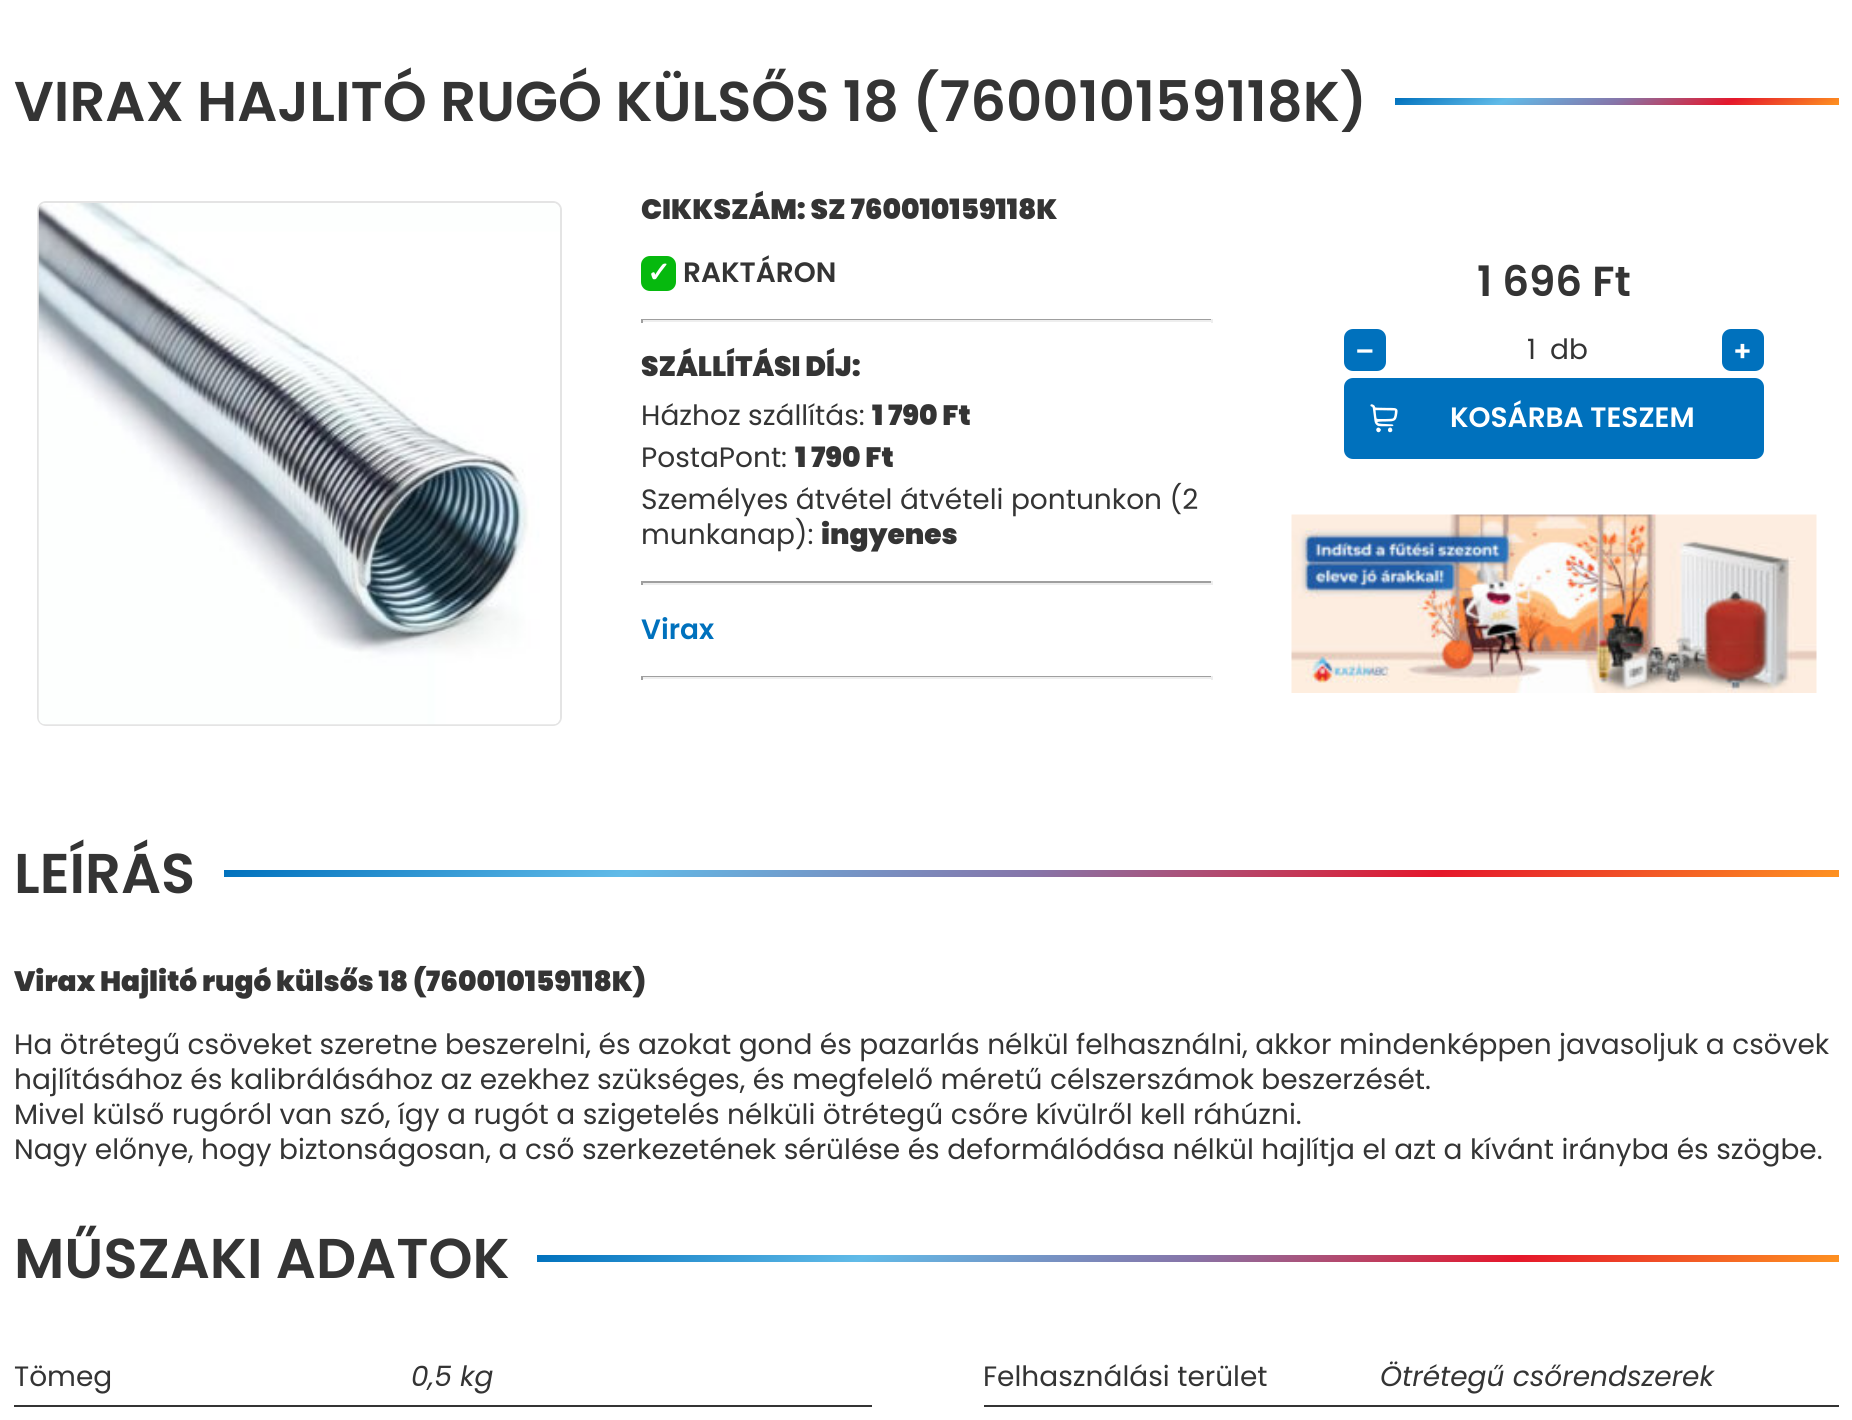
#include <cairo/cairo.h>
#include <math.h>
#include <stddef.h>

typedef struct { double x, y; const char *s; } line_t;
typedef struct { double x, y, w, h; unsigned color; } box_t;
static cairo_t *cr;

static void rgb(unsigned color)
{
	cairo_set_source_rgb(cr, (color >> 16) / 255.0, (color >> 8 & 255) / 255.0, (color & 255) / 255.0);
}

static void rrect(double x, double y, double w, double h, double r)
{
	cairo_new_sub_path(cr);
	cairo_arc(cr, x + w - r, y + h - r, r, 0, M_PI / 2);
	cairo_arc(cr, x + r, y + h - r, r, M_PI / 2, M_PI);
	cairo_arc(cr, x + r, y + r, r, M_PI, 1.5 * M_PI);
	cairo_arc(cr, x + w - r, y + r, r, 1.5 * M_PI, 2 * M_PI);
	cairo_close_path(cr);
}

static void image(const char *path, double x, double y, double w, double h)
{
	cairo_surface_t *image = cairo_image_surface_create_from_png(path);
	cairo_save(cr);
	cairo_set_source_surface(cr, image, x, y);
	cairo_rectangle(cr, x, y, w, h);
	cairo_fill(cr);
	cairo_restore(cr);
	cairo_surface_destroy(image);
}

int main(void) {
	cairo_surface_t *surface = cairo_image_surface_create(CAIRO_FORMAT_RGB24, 1852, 1420);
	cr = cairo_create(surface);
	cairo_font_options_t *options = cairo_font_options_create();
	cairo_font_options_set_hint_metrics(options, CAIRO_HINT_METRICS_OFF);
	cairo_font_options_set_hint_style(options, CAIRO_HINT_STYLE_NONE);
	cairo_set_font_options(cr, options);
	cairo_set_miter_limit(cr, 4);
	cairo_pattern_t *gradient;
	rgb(0xffffff);
	cairo_paint(cr);
	gradient = cairo_pattern_create_linear(1560, 2.6, 1674, 200);
	cairo_pattern_add_color_stop_rgba(gradient, 0, 0, 0.443, 0.741, 1);
	cairo_pattern_add_color_stop_rgba(gradient, 0.25, 0.38, 0.733, 0.91, 1);
	cairo_pattern_add_color_stop_rgba(gradient, 0.5, 0.525, 0.459, 0.663, 1);
	cairo_pattern_add_color_stop_rgba(gradient, 0.75, 0.898, 0.09, 0.169, 1);
	cairo_pattern_add_color_stop_rgba(gradient, 1, 0.996, 0.576, 0.129, 1);
	cairo_set_source(cr, gradient);
	cairo_pattern_destroy(gradient);
	cairo_rectangle(cr, 1395, 98, 444, 7);
	cairo_fill(cr);
	rrect(38, 202, 523, 523, 8);
	rgb(0xe4e4e4);
	cairo_stroke(cr);
	image("img/1.png", 38, 203, 522, 522);
	rgb(0x06b90e);
	rrect(641, 256, 35, 35, 9);
	cairo_fill(cr);
	{
		static const box_t items[] = {
			{641, 319, 572, 1, 0x9f9f9f},
			{1211, 319, 2, 4, 0xeeeeee},
			{641, 320, 572, 2, 0xeeeeee},
			{641, 319, 2, 4, 0x9f9f9f},
			{641, 581, 572, 2, 0x9f9f9f},
			{1211, 581, 2, 4, 0xeeeeee},
			{641, 583, 572, 2, 0xeeeeee},
			{641, 581, 2, 4, 0x9f9f9f},
			{641, 676, 572, 1, 0x9f9f9f},
			{1211, 676, 2, 4, 0xeeeeee},
			{641, 677, 572, 2, 0xeeeeee},
			{641, 676, 2, 4, 0x9f9f9f},
		};
		for (size_t i = 0; i < sizeof items / sizeof *items; i++) {
			rgb(items[i].color);
			cairo_rectangle(cr, items[i].x, items[i].y, items[i].w, items[i].h);
			cairo_fill(cr);
		}
	}
	rgb(0x0071bd);
	rrect(1345, 330, 40, 40, 8);
	cairo_fill_preserve(cr);
	cairo_stroke(cr);
	rrect(1723, 330, 40, 40, 8);
	cairo_fill_preserve(cr);
	cairo_stroke(cr);
	rrect(1345, 379, 418, 79, 8);
	cairo_fill_preserve(cr);
	cairo_stroke(cr);
	image("img/2.png", 1370, 404, 28, 29);
	image("img/3.png", 1291, 514, 526, 179);
	gradient = cairo_pattern_create_linear(828, 521, 1235, 1226);
	cairo_pattern_add_color_stop_rgba(gradient, 0, 0, 0.443, 0.741, 1);
	cairo_pattern_add_color_stop_rgba(gradient, 0.25, 0.38, 0.733, 0.91, 1);
	cairo_pattern_add_color_stop_rgba(gradient, 0.5, 0.525, 0.459, 0.663, 1);
	cairo_pattern_add_color_stop_rgba(gradient, 0.75, 0.898, 0.09, 0.169, 1);
	cairo_pattern_add_color_stop_rgba(gradient, 1, 0.996, 0.576, 0.129, 1);
	cairo_set_source(cr, gradient);
	cairo_pattern_destroy(gradient);
	cairo_rectangle(cr, 224, 870, 1615, 7);
	cairo_fill(cr);
	gradient = cairo_pattern_create_linear(1024, 974, 1353, 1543);
	cairo_pattern_add_color_stop_rgba(gradient, 0, 0, 0.443, 0.741, 1);
	cairo_pattern_add_color_stop_rgba(gradient, 0.25, 0.38, 0.733, 0.91, 1);
	cairo_pattern_add_color_stop_rgba(gradient, 0.5, 0.525, 0.459, 0.663, 1);
	cairo_pattern_add_color_stop_rgba(gradient, 0.75, 0.898, 0.09, 0.169, 1);
	cairo_pattern_add_color_stop_rgba(gradient, 1, 0.996, 0.576, 0.129, 1);
	cairo_set_source(cr, gradient);
	cairo_pattern_destroy(gradient);
	cairo_rectangle(cr, 537, 1255, 1302, 7);
	cairo_fill(cr);
	rgb(0x343434);
	cairo_rectangle(cr, 14, 1405, 858, 2);
	cairo_fill(cr);
	cairo_rectangle(cr, 984, 1405, 855, 2);
	cairo_fill(cr);
	cairo_select_font_face(cr, "Poppins SemiBold", CAIRO_FONT_SLANT_NORMAL, CAIRO_FONT_WEIGHT_NORMAL);
	cairo_set_font_size(cr, 56);
	cairo_move_to(cr, 14, 121);
	cairo_show_text(cr, "VIRAX HAJLITÓ RUGÓ KÜLSŐS 18 (760010159118K)");
	cairo_select_font_face(cr, "Poppins Black", CAIRO_FONT_SLANT_NORMAL, CAIRO_FONT_WEIGHT_NORMAL);
	cairo_set_font_size(cr, 28);
	cairo_move_to(cr, 641, 219);
	cairo_show_text(cr, "CIKKSZÁM: SZ 760010159118K");
	cairo_select_font_face(cr, "DejaVu Sans", CAIRO_FONT_SLANT_NORMAL, CAIRO_FONT_WEIGHT_BOLD);
	rgb(0xffffff);
	cairo_move_to(cr, 647, 282);
	cairo_show_text(cr, "✓");
	cairo_select_font_face(cr, "Poppins SemiBold", CAIRO_FONT_SLANT_NORMAL, CAIRO_FONT_WEIGHT_NORMAL);
	rgb(0x343434);
	cairo_move_to(cr, 683, 282);
	cairo_show_text(cr, "RAKTÁRON");
	cairo_select_font_face(cr, "Poppins Black", CAIRO_FONT_SLANT_NORMAL, CAIRO_FONT_WEIGHT_NORMAL);
	cairo_move_to(cr, 641, 376);
	cairo_show_text(cr, "SZÁLLÍTÁSI DÍJ:");
	cairo_select_font_face(cr, "Poppins", CAIRO_FONT_SLANT_NORMAL, CAIRO_FONT_WEIGHT_NORMAL);
	cairo_move_to(cr, 641, 425);
	cairo_show_text(cr, "Házhoz szállítás:");
	cairo_select_font_face(cr, "Poppins Black", CAIRO_FONT_SLANT_NORMAL, CAIRO_FONT_WEIGHT_NORMAL);
	cairo_move_to(cr, 872, 425);
	cairo_show_text(cr, "1 790 Ft");
	cairo_select_font_face(cr, "Poppins", CAIRO_FONT_SLANT_NORMAL, CAIRO_FONT_WEIGHT_NORMAL);
	cairo_move_to(cr, 641, 467);
	cairo_show_text(cr, "PostaPont:");
	cairo_select_font_face(cr, "Poppins Black", CAIRO_FONT_SLANT_NORMAL, CAIRO_FONT_WEIGHT_NORMAL);
	cairo_move_to(cr, 795, 467);
	cairo_show_text(cr, "1 790 Ft");
	cairo_select_font_face(cr, "Poppins", CAIRO_FONT_SLANT_NORMAL, CAIRO_FONT_WEIGHT_NORMAL);
	cairo_move_to(cr, 641, 509);
	cairo_show_text(cr, "Személyes átvétel átvételi pontunkon (2");
	cairo_move_to(cr, 641, 544);
	cairo_show_text(cr, "munkanap):");
	cairo_select_font_face(cr, "Poppins Black", CAIRO_FONT_SLANT_NORMAL, CAIRO_FONT_WEIGHT_NORMAL);
	cairo_move_to(cr, 821, 544);
	cairo_show_text(cr, "ingyenes");
	cairo_select_font_face(cr, "Poppins SemiBold", CAIRO_FONT_SLANT_NORMAL, CAIRO_FONT_WEIGHT_NORMAL);
	rgb(0x0071bd);
	cairo_move_to(cr, 641, 639);
	cairo_show_text(cr, "Virax");
	cairo_set_font_size(cr, 42);
	rgb(0x343434);
	cairo_move_to(cr, 1477, 296);
	cairo_show_text(cr, "1 696 Ft");
	cairo_set_font_size(cr, 28);
	rgb(0xffffff);
	cairo_move_to(cr, 1355, 361);
	cairo_show_text(cr, "–");
	cairo_select_font_face(cr, "Poppins", CAIRO_FONT_SLANT_NORMAL, CAIRO_FONT_WEIGHT_NORMAL);
	rgb(0x343434);
	cairo_move_to(cr, 1527, 359);
	cairo_show_text(cr, "1");
	cairo_move_to(cr, 1550, 359);
	cairo_show_text(cr, "db");
	cairo_select_font_face(cr, "Poppins SemiBold", CAIRO_FONT_SLANT_NORMAL, CAIRO_FONT_WEIGHT_NORMAL);
	rgb(0xffffff);
	cairo_move_to(cr, 1733, 361);
	cairo_show_text(cr, "+");
	cairo_move_to(cr, 1450, 427);
	cairo_show_text(cr, "KOSÁRBA TESZEM");
	cairo_set_font_size(cr, 56);
	rgb(0x343434);
	cairo_move_to(cr, 14, 893);
	cairo_show_text(cr, "LEÍRÁS");
	cairo_select_font_face(cr, "Poppins Black", CAIRO_FONT_SLANT_NORMAL, CAIRO_FONT_WEIGHT_NORMAL);
	cairo_set_font_size(cr, 28);
	cairo_move_to(cr, 14, 991);
	cairo_show_text(cr, "Virax Hajlitó rugó külsős 18 (760010159118K)");
	cairo_select_font_face(cr, "Poppins", CAIRO_FONT_SLANT_NORMAL, CAIRO_FONT_WEIGHT_NORMAL);
	{
		static const line_t items[] = {
			{14, 1054, "Ha ötrétegű csöveket szeretne beszerelni, és azokat gond és pazarlás nélkül felhasználni, akkor mindenképpen javasoljuk a csövek"},
			{14, 1089, "hajlításához és kalibrálásához az ezekhez szükséges, és megfelelő méretű célszerszámok beszerzését."},
			{14, 1124, "Mivel külső rugóról van szó, így a rugót a szigetelés nélküli ötrétegű csőre kívülről kell ráhúzni."},
			{14, 1159, "Nagy előnye, hogy biztonságosan, a cső szerkezetének sérülése és deformálódása nélkül hajlítja el azt a kívánt irányba és szögbe."},
		};
		for (size_t i = 0; i < sizeof items / sizeof *items; i++) {
			cairo_move_to(cr, items[i].x, items[i].y);
			cairo_show_text(cr, items[i].s);
		}
	}
	cairo_select_font_face(cr, "Poppins SemiBold", CAIRO_FONT_SLANT_NORMAL, CAIRO_FONT_WEIGHT_NORMAL);
	cairo_set_font_size(cr, 56);
	cairo_move_to(cr, 14, 1278);
	cairo_show_text(cr, "MŰSZAKI ADATOK");
	cairo_select_font_face(cr, "Poppins", CAIRO_FONT_SLANT_NORMAL, CAIRO_FONT_WEIGHT_NORMAL);
	cairo_set_font_size(cr, 28);
	cairo_move_to(cr, 14, 1386);
	cairo_show_text(cr, "Tömeg");
	cairo_select_font_face(cr, "Poppins", CAIRO_FONT_SLANT_ITALIC, CAIRO_FONT_WEIGHT_NORMAL);
	cairo_move_to(cr, 411, 1386);
	cairo_show_text(cr, "0,5 kg");
	cairo_select_font_face(cr, "Poppins", CAIRO_FONT_SLANT_NORMAL, CAIRO_FONT_WEIGHT_NORMAL);
	cairo_move_to(cr, 983, 1386);
	cairo_show_text(cr, "Felhasználási terület");
	cairo_select_font_face(cr, "Poppins", CAIRO_FONT_SLANT_ITALIC, CAIRO_FONT_WEIGHT_NORMAL);
	cairo_move_to(cr, 1380, 1386);
	cairo_show_text(cr, "Ötrétegű csőrendszerek");
	cairo_surface_write_to_png(surface, "page.png");
	cairo_font_options_destroy(options);
	cairo_destroy(cr);
	cairo_surface_destroy(surface);
	return 0;
}
